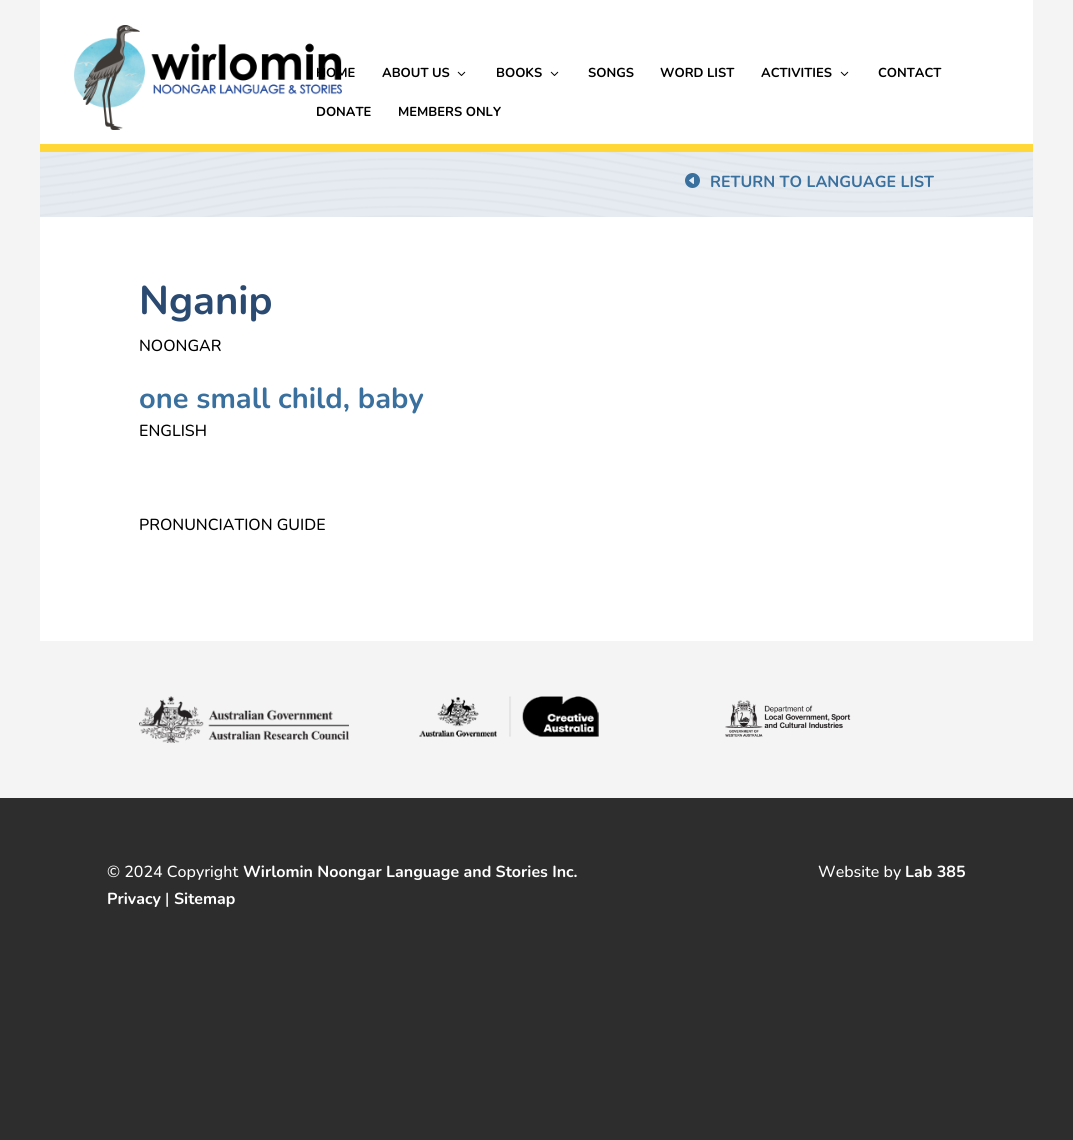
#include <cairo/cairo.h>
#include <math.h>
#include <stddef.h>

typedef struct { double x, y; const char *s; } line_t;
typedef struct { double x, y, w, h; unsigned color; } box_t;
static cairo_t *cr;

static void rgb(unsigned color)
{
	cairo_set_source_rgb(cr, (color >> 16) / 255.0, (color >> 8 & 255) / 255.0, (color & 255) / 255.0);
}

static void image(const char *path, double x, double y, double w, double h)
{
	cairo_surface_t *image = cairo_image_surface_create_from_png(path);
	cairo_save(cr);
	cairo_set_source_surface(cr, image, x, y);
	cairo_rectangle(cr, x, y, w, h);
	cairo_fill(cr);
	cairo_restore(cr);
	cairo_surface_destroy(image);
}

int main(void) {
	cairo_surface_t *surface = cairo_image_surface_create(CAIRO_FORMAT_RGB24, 1073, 1140);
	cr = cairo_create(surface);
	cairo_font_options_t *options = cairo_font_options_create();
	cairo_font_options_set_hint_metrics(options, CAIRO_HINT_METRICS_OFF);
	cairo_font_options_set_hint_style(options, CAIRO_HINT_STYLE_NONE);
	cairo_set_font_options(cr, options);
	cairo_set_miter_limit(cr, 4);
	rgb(0x2d2d2d);
	cairo_paint(cr);
	{
		static const box_t items[] = {
			{0, 0, 1073, 798, 0xf4f4f4},
			{40, 0, 993, 144, 0xffffff},
			{40, 144, 993, 8, 0xffd737},
		};
		for (size_t i = 0; i < sizeof items / sizeof *items; i++) {
			rgb(items[i].color);
			cairo_rectangle(cr, items[i].x, items[i].y, items[i].w, items[i].h);
			cairo_fill(cr);
		}
	}
	image("img/1.png", 74, 25, 268, 105);
	image("img/2.png", 457, 71, 9, 5);
	image("img/2.png", 550, 71, 9, 5);
	image("img/2.png", 840, 71, 9, 5);
	rgb(0xffffff);
	cairo_rectangle(cr, 40, 217, 993, 424);
	cairo_fill(cr);
	rgb(0xe0e7ee);
	cairo_rectangle(cr, 40, 152, 993, 65);
	cairo_fill(cr);
	image("img/3.png", 40, 152, 993, 65);
	image("img/4.png", 685, 173, 15, 15);
	image("img/5.png", 139, 696, 210, 47);
	image("img/6.png", 419, 696, 180, 41);
	image("img/7.png", 725, 700, 126, 37);
	cairo_select_font_face(cr, "Nunito ExtraLight", CAIRO_FONT_SLANT_NORMAL, CAIRO_FONT_WEIGHT_NORMAL);
	cairo_set_font_size(cr, 13);
	rgb(0x000000);
	{
		static const line_t items[] = {
			{316, 77, "HOME"},
			{382, 77, "ABOUT US"},
			{496, 77, "BOOKS"},
			{588, 77, "SONGS"},
			{660, 77, "WORD LIST"},
			{761, 77, "ACTIVITIES"},
			{878, 77, "CONTACT"},
			{316, 116, "DONATE"},
			{398, 116, "MEMBERS ONLY"},
		};
		for (size_t i = 0; i < sizeof items / sizeof *items; i++) {
			cairo_move_to(cr, items[i].x, items[i].y);
			cairo_show_text(cr, items[i].s);
		}
	}
	cairo_set_font_size(cr, 16);
	rgb(0x3a709e);
	cairo_move_to(cr, 710, 187);
	cairo_show_text(cr, "RETURN TO LANGUAGE LIST");
	cairo_set_font_size(cr, 40);
	rgb(0x2a4a71);
	cairo_move_to(cr, 139, 314);
	cairo_show_text(cr, "Nganip");
	cairo_select_font_face(cr, "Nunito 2 ExtraLight", CAIRO_FONT_SLANT_NORMAL, CAIRO_FONT_WEIGHT_NORMAL);
	cairo_set_font_size(cr, 16);
	rgb(0x000000);
	cairo_move_to(cr, 139, 351);
	cairo_show_text(cr, "NOONGAR");
	cairo_select_font_face(cr, "Nunito ExtraLight", CAIRO_FONT_SLANT_NORMAL, CAIRO_FONT_WEIGHT_NORMAL);
	cairo_set_font_size(cr, 29);
	rgb(0x3a709e);
	cairo_move_to(cr, 139, 408);
	cairo_show_text(cr, "one small child, baby");
	cairo_select_font_face(cr, "Nunito 2 ExtraLight", CAIRO_FONT_SLANT_NORMAL, CAIRO_FONT_WEIGHT_NORMAL);
	cairo_set_font_size(cr, 16);
	rgb(0x000000);
	cairo_move_to(cr, 139, 436);
	cairo_show_text(cr, "ENGLISH");
	cairo_move_to(cr, 139, 530);
	cairo_show_text(cr, "PRONUNCIATION GUIDE");
	rgb(0xffffff);
	cairo_move_to(cr, 107, 877);
	cairo_show_text(cr, "© 2024 Copyright");
	cairo_select_font_face(cr, "Nunito ExtraLight", CAIRO_FONT_SLANT_NORMAL, CAIRO_FONT_WEIGHT_NORMAL);
	cairo_move_to(cr, 243, 877);
	cairo_show_text(cr, "Wirlomin Noongar Language and Stories Inc.");
	cairo_move_to(cr, 107, 904);
	cairo_show_text(cr, "Privacy");
	cairo_select_font_face(cr, "Nunito 2 ExtraLight", CAIRO_FONT_SLANT_NORMAL, CAIRO_FONT_WEIGHT_NORMAL);
	cairo_move_to(cr, 165, 904);
	cairo_show_text(cr, "|");
	cairo_select_font_face(cr, "Nunito ExtraLight", CAIRO_FONT_SLANT_NORMAL, CAIRO_FONT_WEIGHT_NORMAL);
	cairo_move_to(cr, 174, 904);
	cairo_show_text(cr, "Sitemap");
	cairo_select_font_face(cr, "Nunito 2 ExtraLight", CAIRO_FONT_SLANT_NORMAL, CAIRO_FONT_WEIGHT_NORMAL);
	cairo_move_to(cr, 818, 877);
	cairo_show_text(cr, "Website by");
	cairo_select_font_face(cr, "Nunito ExtraLight", CAIRO_FONT_SLANT_NORMAL, CAIRO_FONT_WEIGHT_NORMAL);
	cairo_move_to(cr, 905, 877);
	cairo_show_text(cr, "Lab 385");
	cairo_surface_write_to_png(surface, "page.png");
	cairo_font_options_destroy(options);
	cairo_destroy(cr);
	cairo_surface_destroy(surface);
	return 0;
}
